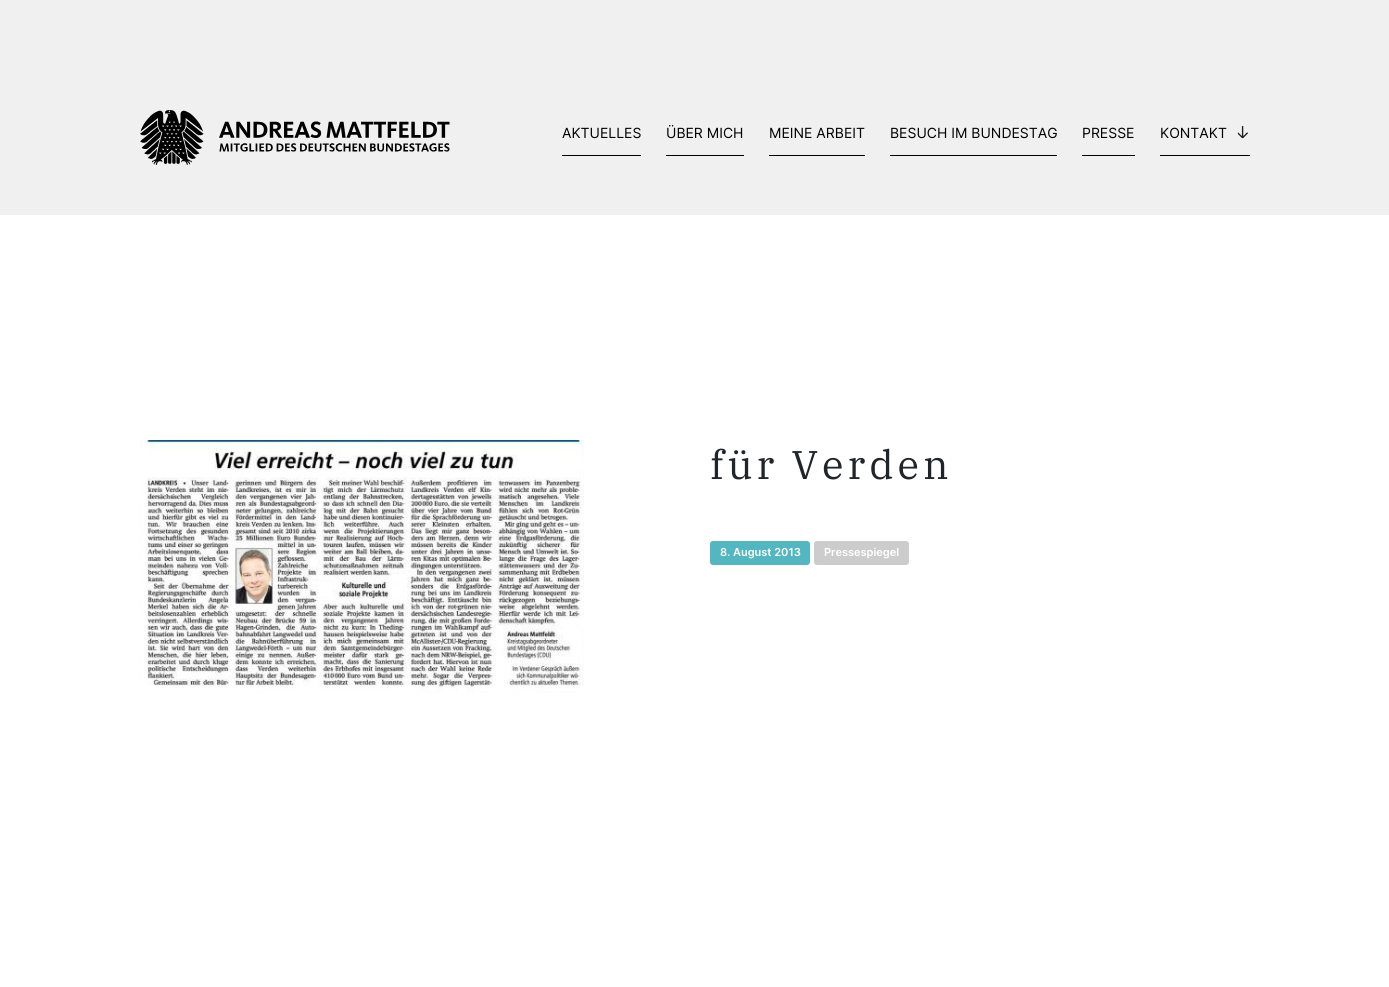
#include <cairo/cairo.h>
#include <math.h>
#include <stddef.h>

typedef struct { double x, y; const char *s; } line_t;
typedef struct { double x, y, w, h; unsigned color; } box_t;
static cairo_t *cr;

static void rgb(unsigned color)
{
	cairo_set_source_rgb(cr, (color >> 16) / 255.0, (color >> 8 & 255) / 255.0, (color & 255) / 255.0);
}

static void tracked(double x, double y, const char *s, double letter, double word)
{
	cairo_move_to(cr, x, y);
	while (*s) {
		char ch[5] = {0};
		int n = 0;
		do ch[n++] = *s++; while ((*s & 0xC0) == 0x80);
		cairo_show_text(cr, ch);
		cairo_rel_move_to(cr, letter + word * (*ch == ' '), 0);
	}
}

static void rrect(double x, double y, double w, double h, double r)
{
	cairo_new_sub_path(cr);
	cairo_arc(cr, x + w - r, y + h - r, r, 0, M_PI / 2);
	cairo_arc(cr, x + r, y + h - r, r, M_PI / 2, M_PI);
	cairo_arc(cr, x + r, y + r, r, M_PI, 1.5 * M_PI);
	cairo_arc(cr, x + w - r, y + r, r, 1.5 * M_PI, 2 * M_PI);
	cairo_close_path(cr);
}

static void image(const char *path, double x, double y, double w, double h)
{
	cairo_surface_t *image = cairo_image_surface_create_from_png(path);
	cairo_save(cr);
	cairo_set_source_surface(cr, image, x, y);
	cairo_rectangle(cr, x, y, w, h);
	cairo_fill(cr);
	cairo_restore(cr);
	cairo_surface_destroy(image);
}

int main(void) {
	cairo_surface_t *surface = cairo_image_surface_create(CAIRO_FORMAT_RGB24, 1389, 987);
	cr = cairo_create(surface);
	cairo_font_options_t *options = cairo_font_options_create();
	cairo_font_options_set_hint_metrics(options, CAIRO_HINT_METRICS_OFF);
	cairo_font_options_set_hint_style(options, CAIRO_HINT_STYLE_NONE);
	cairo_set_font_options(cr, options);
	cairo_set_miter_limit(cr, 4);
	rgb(0xffffff);
	cairo_paint(cr);
	rgb(0xf0f0f0);
	cairo_rectangle(cr, 0, 0, 1389, 215);
	cairo_fill(cr);
	image("img/1.png", 140, 110, 310, 55);
	{
		static const box_t items[] = {
			{562, 155, 79, 1, 0x000000},
			{666, 155, 78, 1, 0x000000},
			{769, 155, 96, 1, 0x000000},
			{890, 155, 167, 1, 0x000000},
			{1082, 155, 53, 1, 0x000000},
			{1160, 155, 90, 1, 0x000000},
		};
		for (size_t i = 0; i < sizeof items / sizeof *items; i++) {
			rgb(items[i].color);
			cairo_rectangle(cr, items[i].x, items[i].y, items[i].w, items[i].h);
			cairo_fill(cr);
		}
	}
	image("img/2.png", 1237, 126, 11, 13);
	image("img/3.png", 140, 440, 444, 253);
	rgb(0x52b7c1);
	rrect(710, 541, 100, 24, 3);
	cairo_fill(cr);
	rgb(0xcccccc);
	rrect(814, 541, 95, 24, 3);
	cairo_fill(cr);
	cairo_select_font_face(cr, "Inter", CAIRO_FONT_SLANT_NORMAL, CAIRO_FONT_WEIGHT_NORMAL);
	cairo_set_font_size(cr, 14);
	rgb(0x000000);
	{
		static const line_t items[] = {
			{562, 138, "AKTUELLES"},
			{666, 138, "ÜBER MICH"},
			{769, 138, "MEINE ARBEIT"},
			{890, 138, "BESUCH IM BUNDESTAG"},
			{1082, 138, "PRESSE"},
			{1160, 138, "KONTAKT"},
		};
		for (size_t i = 0; i < sizeof items / sizeof *items; i++) {
			cairo_move_to(cr, items[i].x, items[i].y);
			cairo_show_text(cr, items[i].s);
		}
	}
	cairo_select_font_face(cr, "IBM Plex Serif", CAIRO_FONT_SLANT_NORMAL, CAIRO_FONT_WEIGHT_NORMAL);
	cairo_set_font_size(cr, 40);
	rgb(0x212529);
	tracked(710, 479, "für Verden", 4, 0);
	cairo_select_font_face(cr, "Inter SemiBold", CAIRO_FONT_SLANT_NORMAL, CAIRO_FONT_WEIGHT_NORMAL);
	cairo_set_font_size(cr, 11);
	rgb(0xffffff);
	cairo_move_to(cr, 720, 556);
	cairo_show_text(cr, "8. August 2013");
	cairo_move_to(cr, 824, 556);
	cairo_show_text(cr, "Pressespiegel");
	cairo_surface_write_to_png(surface, "page.png");
	cairo_font_options_destroy(options);
	cairo_destroy(cr);
	cairo_surface_destroy(surface);
	return 0;
}
